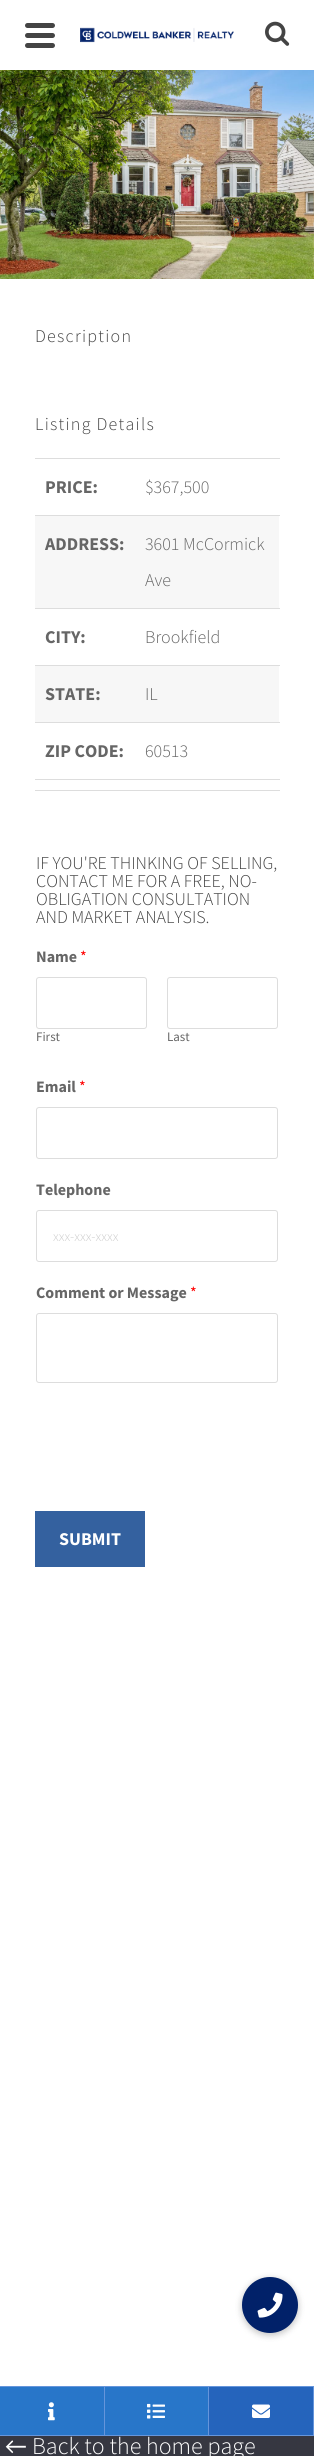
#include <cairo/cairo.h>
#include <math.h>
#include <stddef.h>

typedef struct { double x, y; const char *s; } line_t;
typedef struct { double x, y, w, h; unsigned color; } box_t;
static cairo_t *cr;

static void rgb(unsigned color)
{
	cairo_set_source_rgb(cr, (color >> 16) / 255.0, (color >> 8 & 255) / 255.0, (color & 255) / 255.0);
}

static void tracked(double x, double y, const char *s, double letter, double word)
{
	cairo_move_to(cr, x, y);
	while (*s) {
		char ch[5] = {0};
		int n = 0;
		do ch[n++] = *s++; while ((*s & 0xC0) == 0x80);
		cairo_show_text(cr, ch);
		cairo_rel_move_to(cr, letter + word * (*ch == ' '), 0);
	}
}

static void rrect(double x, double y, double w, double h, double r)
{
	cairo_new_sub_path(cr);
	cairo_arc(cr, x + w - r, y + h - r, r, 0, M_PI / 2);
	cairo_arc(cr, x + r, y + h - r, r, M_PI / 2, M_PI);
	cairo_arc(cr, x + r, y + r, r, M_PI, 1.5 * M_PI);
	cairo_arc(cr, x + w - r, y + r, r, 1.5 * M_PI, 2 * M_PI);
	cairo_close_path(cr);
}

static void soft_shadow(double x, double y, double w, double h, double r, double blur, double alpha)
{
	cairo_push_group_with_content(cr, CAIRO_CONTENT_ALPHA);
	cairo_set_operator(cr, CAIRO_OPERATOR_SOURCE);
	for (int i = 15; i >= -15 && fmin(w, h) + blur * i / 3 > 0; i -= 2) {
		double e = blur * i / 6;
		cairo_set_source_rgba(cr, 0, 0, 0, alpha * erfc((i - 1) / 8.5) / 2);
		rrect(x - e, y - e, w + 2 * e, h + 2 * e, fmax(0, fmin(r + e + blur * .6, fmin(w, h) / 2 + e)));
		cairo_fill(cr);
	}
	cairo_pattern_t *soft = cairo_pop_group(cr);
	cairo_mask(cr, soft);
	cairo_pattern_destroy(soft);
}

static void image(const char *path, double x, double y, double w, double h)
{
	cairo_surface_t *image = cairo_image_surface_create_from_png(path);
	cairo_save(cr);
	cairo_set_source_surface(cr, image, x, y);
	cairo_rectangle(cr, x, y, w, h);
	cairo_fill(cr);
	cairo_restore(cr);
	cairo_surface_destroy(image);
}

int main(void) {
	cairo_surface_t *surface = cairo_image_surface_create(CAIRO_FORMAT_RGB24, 314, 2456);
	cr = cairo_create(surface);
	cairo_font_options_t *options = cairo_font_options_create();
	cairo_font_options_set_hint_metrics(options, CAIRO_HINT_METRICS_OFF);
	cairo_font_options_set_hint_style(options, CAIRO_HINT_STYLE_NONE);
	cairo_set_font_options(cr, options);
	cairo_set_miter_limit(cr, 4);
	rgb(0xffffff);
	cairo_paint(cr);
	rgb(0x444444);
	rrect(25, 23, 30, 5, 2.5);
	cairo_fill(cr);
	rrect(25, 33, 30, 5, 2.5);
	cairo_fill(cr);
	rrect(25, 43, 30, 5, 2.5);
	cairo_fill(cr);
	image("img/1.png", 80, 27, 154, 16);
	image("img/2.png", 265, 21, 25, 25);
	image("img/3.png", 0, 70, 314, 209);
	{
		static const box_t items[] = {
			{35, 458, 245, 1, 0xdddddd},
			{35, 516, 244, 92, 0xf7f7f7},
			{35, 515, 245, 1, 0xdddddd},
			{35, 608, 245, 1, 0xdddddd},
			{35, 666, 244, 56, 0xf7f7f7},
			{35, 665, 245, 1, 0xdddddd},
			{35, 722, 245, 1, 0xdddddd},
			{35, 779, 245, 1, 0xdddddd},
			{35, 790, 245, 1, 0xdddddd},
		};
		for (size_t i = 0; i < sizeof items / sizeof *items; i++) {
			rgb(items[i].color);
			cairo_rectangle(cr, items[i].x, items[i].y, items[i].w, items[i].h);
			cairo_fill(cr);
		}
	}
	rrect(36.5, 977.5, 110, 51, 2.5);
	cairo_set_line_width(cr, 1);
	cairo_stroke(cr);
	rrect(167.5, 977.5, 110, 51, 2.5);
	cairo_stroke(cr);
	rrect(36.5, 1107.5, 241, 51, 2.5);
	cairo_stroke(cr);
	rrect(36.5, 1210.5, 241, 51, 2.5);
	cairo_stroke(cr);
	rrect(36.5, 1313.5, 241, 69, 2.5);
	cairo_stroke(cr);
	{
		static const box_t items[] = {
			{35, 1511, 110, 56, 0x34619f},
			{0, 2436, 314, 20, 0x363741},
			{0, 2387, 208, 48, 0x2876c9},
			{0, 2386, 314, 1, 0x6595db},
			{104, 2387, 1, 49, 0x6595db},
			{0, 2435, 105, 1, 0x6595db},
		};
		for (size_t i = 0; i < sizeof items / sizeof *items; i++) {
			rgb(items[i].color);
			cairo_rectangle(cr, items[i].x, items[i].y, items[i].w, items[i].h);
			cairo_fill(cr);
		}
	}
	image("img/4.png", 48, 2402, 7, 19);
	cairo_rectangle(cr, 208, 2387, 1, 49);
	cairo_fill(cr);
	cairo_rectangle(cr, 105, 2435, 104, 1);
	cairo_fill(cr);
	image("img/5.png", 147, 2403, 18, 16);
	{
		static const box_t items[] = {
			{313, 2387, 1, 49, 0x6595db},
			{209, 2435, 105, 1, 0x6595db},
			{209, 2387, 104, 48, 0x2564bc},
		};
		for (size_t i = 0; i < sizeof items / sizeof *items; i++) {
			rgb(items[i].color);
			cairo_rectangle(cr, items[i].x, items[i].y, items[i].w, items[i].h);
			cairo_fill(cr);
		}
	}
	image("img/6.png", 252, 2404, 18, 14);
	rgb(0x000000);
	soft_shadow(241, 2278, 58, 58, 29, 3, 0.2);
	rgb(0x012169);
	cairo_arc(cr, 270, 2305, 28, 0, 2 * M_PI);
	cairo_fill(cr);
	image("img/7.png", 257, 2292, 26, 26);
	cairo_select_font_face(cr, "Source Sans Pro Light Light", CAIRO_FONT_SLANT_NORMAL, CAIRO_FONT_WEIGHT_NORMAL);
	cairo_set_font_size(cr, 18);
	rgb(0x444444);
	tracked(35, 342, "Description", 1.25, 0);
	tracked(35, 430, "Listing Details", 1.25, 0);
	cairo_select_font_face(cr, "Source Sans Pro", CAIRO_FONT_SLANT_NORMAL, CAIRO_FONT_WEIGHT_BOLD);
	rgb(0x666666);
	cairo_move_to(cr, 45, 493);
	cairo_show_text(cr, "PRICE:");
	cairo_select_font_face(cr, "Source Sans Pro Light Light", CAIRO_FONT_SLANT_NORMAL, CAIRO_FONT_WEIGHT_NORMAL);
	cairo_move_to(cr, 145, 493);
	cairo_show_text(cr, "$367,500");
	cairo_select_font_face(cr, "Source Sans Pro", CAIRO_FONT_SLANT_NORMAL, CAIRO_FONT_WEIGHT_BOLD);
	cairo_move_to(cr, 45, 550);
	cairo_show_text(cr, "ADDRESS:");
	cairo_select_font_face(cr, "Source Sans Pro Light Light", CAIRO_FONT_SLANT_NORMAL, CAIRO_FONT_WEIGHT_NORMAL);
	cairo_move_to(cr, 145, 550);
	cairo_show_text(cr, "3601 McCormick");
	cairo_move_to(cr, 145, 586);
	cairo_show_text(cr, "Ave");
	cairo_select_font_face(cr, "Source Sans Pro", CAIRO_FONT_SLANT_NORMAL, CAIRO_FONT_WEIGHT_BOLD);
	cairo_move_to(cr, 45, 643);
	cairo_show_text(cr, "CITY:");
	cairo_select_font_face(cr, "Source Sans Pro Light Light", CAIRO_FONT_SLANT_NORMAL, CAIRO_FONT_WEIGHT_NORMAL);
	cairo_move_to(cr, 145, 643);
	cairo_show_text(cr, "Brookfield");
	cairo_select_font_face(cr, "Source Sans Pro", CAIRO_FONT_SLANT_NORMAL, CAIRO_FONT_WEIGHT_BOLD);
	cairo_move_to(cr, 45, 700);
	cairo_show_text(cr, "STATE:");
	cairo_select_font_face(cr, "Source Sans Pro Light Light", CAIRO_FONT_SLANT_NORMAL, CAIRO_FONT_WEIGHT_NORMAL);
	cairo_move_to(cr, 145, 700);
	cairo_show_text(cr, "IL");
	cairo_select_font_face(cr, "Source Sans Pro", CAIRO_FONT_SLANT_NORMAL, CAIRO_FONT_WEIGHT_BOLD);
	cairo_move_to(cr, 45, 757);
	cairo_show_text(cr, "ZIP CODE:");
	cairo_select_font_face(cr, "Source Sans Pro Light Light", CAIRO_FONT_SLANT_NORMAL, CAIRO_FONT_WEIGHT_NORMAL);
	cairo_move_to(cr, 145, 757);
	cairo_show_text(cr, "60513");
	rgb(0x444444);
	{
		static const line_t items[] = {
			{36, 869, "IF YOU'RE THINKING OF SELLING,"},
			{36, 887, "CONTACT ME FOR A FREE, NO-"},
			{36, 905, "OBLIGATION CONSULTATION"},
			{36, 923, "AND MARKET ANALYSIS."},
		};
		for (size_t i = 0; i < sizeof items / sizeof *items; i++) {
			cairo_move_to(cr, items[i].x, items[i].y);
			cairo_show_text(cr, items[i].s);
		}
	}
	cairo_select_font_face(cr, "Source Sans Pro", CAIRO_FONT_SLANT_NORMAL, CAIRO_FONT_WEIGHT_BOLD);
	cairo_set_font_size(cr, 16);
	rgb(0x666666);
	cairo_move_to(cr, 36, 962);
	cairo_show_text(cr, "Name");
	cairo_select_font_face(cr, "Source Sans Pro", CAIRO_FONT_SLANT_NORMAL, CAIRO_FONT_WEIGHT_NORMAL);
	rgb(0xff0000);
	cairo_move_to(cr, 80, 962);
	cairo_show_text(cr, "*");
	cairo_set_font_size(cr, 13);
	rgb(0x666666);
	cairo_move_to(cr, 36, 1041);
	cairo_show_text(cr, "First");
	cairo_move_to(cr, 167, 1041);
	cairo_show_text(cr, "Last");
	cairo_select_font_face(cr, "Source Sans Pro", CAIRO_FONT_SLANT_NORMAL, CAIRO_FONT_WEIGHT_BOLD);
	cairo_set_font_size(cr, 16);
	cairo_move_to(cr, 36, 1092);
	cairo_show_text(cr, "Email");
	cairo_select_font_face(cr, "Source Sans Pro", CAIRO_FONT_SLANT_NORMAL, CAIRO_FONT_WEIGHT_NORMAL);
	rgb(0xff0000);
	cairo_move_to(cr, 79, 1092);
	cairo_show_text(cr, "*");
	cairo_select_font_face(cr, "Source Sans Pro", CAIRO_FONT_SLANT_NORMAL, CAIRO_FONT_WEIGHT_BOLD);
	rgb(0x666666);
	cairo_move_to(cr, 36, 1195);
	cairo_show_text(cr, "Telephone");
	cairo_select_font_face(cr, "Source Sans Pro Light Light", CAIRO_FONT_SLANT_NORMAL, CAIRO_FONT_WEIGHT_NORMAL);
	cairo_set_font_size(cr, 14);
	rgb(0xcccccc);
	cairo_move_to(cr, 53, 1241);
	cairo_show_text(cr, "xxx-xxx-xxxx");
	cairo_select_font_face(cr, "Source Sans Pro", CAIRO_FONT_SLANT_NORMAL, CAIRO_FONT_WEIGHT_BOLD);
	cairo_set_font_size(cr, 16);
	rgb(0x666666);
	cairo_move_to(cr, 36, 1298);
	cairo_show_text(cr, "Comment or Message");
	cairo_select_font_face(cr, "Source Sans Pro", CAIRO_FONT_SLANT_NORMAL, CAIRO_FONT_WEIGHT_NORMAL);
	rgb(0xff0000);
	cairo_move_to(cr, 190, 1298);
	cairo_show_text(cr, "*");
	cairo_select_font_face(cr, "Source Sans Pro", CAIRO_FONT_SLANT_NORMAL, CAIRO_FONT_WEIGHT_BOLD);
	cairo_set_font_size(cr, 18);
	rgb(0xffffff);
	cairo_move_to(cr, 59, 1545);
	cairo_show_text(cr, "SUBMIT");
	cairo_select_font_face(cr, "Carlito", CAIRO_FONT_SLANT_NORMAL, CAIRO_FONT_WEIGHT_NORMAL);
	cairo_set_font_size(cr, 24);
	cairo_move_to(cr, 5, 2454);
	cairo_show_text(cr, "←");
	cairo_select_font_face(cr, "Source Sans Pro Light Light", CAIRO_FONT_SLANT_NORMAL, CAIRO_FONT_WEIGHT_NORMAL);
	cairo_move_to(cr, 32, 2454);
	cairo_show_text(cr, "Back to the home page");
	cairo_surface_write_to_png(surface, "page.png");
	cairo_font_options_destroy(options);
	cairo_destroy(cr);
	cairo_surface_destroy(surface);
	return 0;
}
